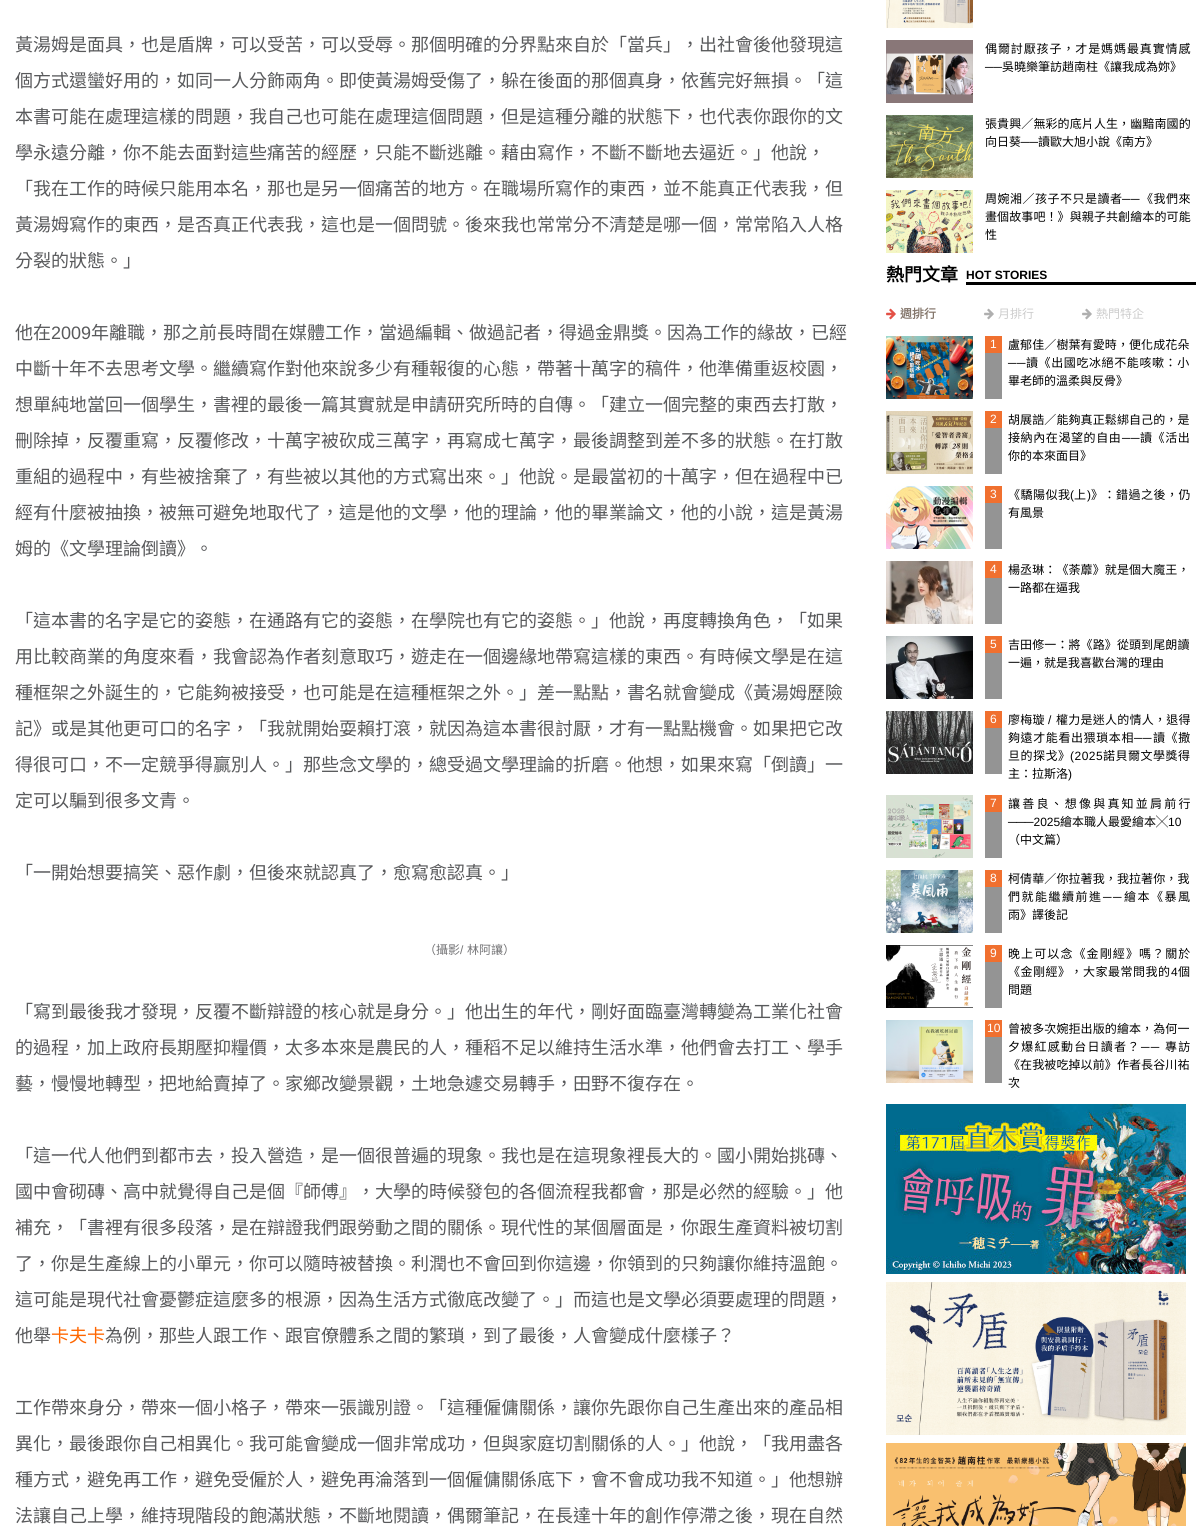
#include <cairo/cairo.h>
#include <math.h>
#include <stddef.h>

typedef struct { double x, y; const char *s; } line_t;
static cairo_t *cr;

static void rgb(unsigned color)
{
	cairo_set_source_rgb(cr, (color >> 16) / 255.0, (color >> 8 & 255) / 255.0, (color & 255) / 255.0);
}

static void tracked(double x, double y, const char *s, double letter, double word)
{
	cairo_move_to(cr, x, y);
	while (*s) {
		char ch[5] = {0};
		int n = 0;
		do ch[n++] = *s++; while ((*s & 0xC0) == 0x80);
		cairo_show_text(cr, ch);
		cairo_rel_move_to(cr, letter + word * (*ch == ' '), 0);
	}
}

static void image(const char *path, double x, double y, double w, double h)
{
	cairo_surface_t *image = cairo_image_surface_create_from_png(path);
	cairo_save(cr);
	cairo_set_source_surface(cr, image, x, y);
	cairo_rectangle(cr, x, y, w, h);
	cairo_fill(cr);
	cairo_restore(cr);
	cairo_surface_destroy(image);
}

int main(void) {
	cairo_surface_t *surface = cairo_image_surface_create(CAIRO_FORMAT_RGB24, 1196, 1526);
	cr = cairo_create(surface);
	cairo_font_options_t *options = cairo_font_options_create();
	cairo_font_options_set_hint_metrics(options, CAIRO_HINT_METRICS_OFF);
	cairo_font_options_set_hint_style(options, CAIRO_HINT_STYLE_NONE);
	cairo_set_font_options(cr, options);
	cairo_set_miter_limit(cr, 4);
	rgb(0xffffff);
	cairo_paint(cr);
	image("img/1.png", 886, 0, 87, 28);
	image("img/2.png", 886, 40, 87, 63);
	image("img/3.png", 886, 115, 87, 63);
	image("img/4.png", 886, 190, 87, 63);
	rgb(0x000000);
	cairo_rectangle(cr, 966, 282, 230, 3);
	cairo_fill(cr);
	image("img/5.png", 886, 308, 10, 12);
	image("img/6.png", 984, 308, 10, 12);
	image("img/6.png", 1082, 308, 10, 12);
	image("img/7.png", 886, 336, 87, 63);
	rgb(0x949494);
	cairo_rectangle(cr, 985, 353, 17, 46);
	cairo_fill(cr);
	rgb(0xf0702f);
	cairo_rectangle(cr, 985, 336, 17, 17);
	cairo_fill(cr);
	image("img/8.png", 886, 411, 87, 63);
	rgb(0x949494);
	cairo_rectangle(cr, 985, 428, 17, 46);
	cairo_fill(cr);
	rgb(0xf0702f);
	cairo_rectangle(cr, 985, 411, 17, 17);
	cairo_fill(cr);
	image("img/9.png", 886, 486, 87, 63);
	rgb(0x949494);
	cairo_rectangle(cr, 985, 503, 17, 46);
	cairo_fill(cr);
	rgb(0xf0702f);
	cairo_rectangle(cr, 985, 486, 17, 17);
	cairo_fill(cr);
	image("img/10.png", 886, 561, 87, 63);
	rgb(0x949494);
	cairo_rectangle(cr, 985, 578, 17, 46);
	cairo_fill(cr);
	rgb(0xf0702f);
	cairo_rectangle(cr, 985, 561, 17, 17);
	cairo_fill(cr);
	image("img/11.png", 886, 636, 87, 63);
	rgb(0x949494);
	cairo_rectangle(cr, 985, 653, 17, 46);
	cairo_fill(cr);
	rgb(0xf0702f);
	cairo_rectangle(cr, 985, 636, 17, 17);
	cairo_fill(cr);
	image("img/12.png", 886, 711, 87, 63);
	rgb(0x949494);
	cairo_rectangle(cr, 985, 728, 17, 46);
	cairo_fill(cr);
	rgb(0xf0702f);
	cairo_rectangle(cr, 985, 711, 17, 17);
	cairo_fill(cr);
	image("img/13.png", 886, 795, 87, 63);
	rgb(0x949494);
	cairo_rectangle(cr, 985, 812, 17, 46);
	cairo_fill(cr);
	rgb(0xf0702f);
	cairo_rectangle(cr, 985, 795, 17, 17);
	cairo_fill(cr);
	image("img/14.png", 886, 870, 87, 63);
	rgb(0x949494);
	cairo_rectangle(cr, 985, 887, 17, 46);
	cairo_fill(cr);
	rgb(0xf0702f);
	cairo_rectangle(cr, 985, 870, 17, 17);
	cairo_fill(cr);
	image("img/15.png", 886, 945, 87, 63);
	rgb(0x949494);
	cairo_rectangle(cr, 985, 962, 17, 46);
	cairo_fill(cr);
	rgb(0xf0702f);
	cairo_rectangle(cr, 985, 945, 17, 17);
	cairo_fill(cr);
	image("img/16.png", 886, 1020, 87, 63);
	rgb(0x949494);
	cairo_rectangle(cr, 985, 1037, 17, 46);
	cairo_fill(cr);
	rgb(0xf0702f);
	cairo_rectangle(cr, 985, 1020, 17, 17);
	cairo_fill(cr);
	image("img/17.png", 886, 1104, 300, 170);
	image("img/18.png", 886, 1282, 300, 153);
	image("img/19.png", 886, 1443, 300, 83);
	cairo_select_font_face(cr, "Noto Sans CJK TC", CAIRO_FONT_SLANT_NORMAL, CAIRO_FONT_WEIGHT_NORMAL);
	cairo_set_font_size(cr, 18);
	rgb(0x58595b);
	{
		static const line_t items[] = {
			{15, 51, "黃湯姆是面具，也是盾牌，可以受苦，可以受辱。那個明確的分界點來自於「當兵」，出社會後他發現這"},
			{15, 87, "個方式還蠻好用的，如同一人分飾兩角。即使黃湯姆受傷了，躲在後面的那個真身，依舊完好無損。「這"},
			{15, 123, "本書可能在處理這樣的問題，我自己也可能在處理這個問題，但是這種分離的狀態下，也代表你跟你的文"},
			{15, 159, "學永遠分離，你不能去面對這些痛苦的經歷，只能不斷逃離。藉由寫作，不斷不斷地去逼近。」他說，"},
			{15, 195, "「我在工作的時候只能用本名，那也是另一個痛苦的地方。在職場所寫作的東西，並不能真正代表我，但"},
			{15, 231, "黃湯姆寫作的東西，是否真正代表我，這也是一個問號。後來我也常常分不清楚是哪一個，常常陷入人格"},
			{15, 267, "分裂的狀態。」"},
			{15, 339, "他在"},
		};
		for (size_t i = 0; i < sizeof items / sizeof *items; i++) {
			cairo_move_to(cr, items[i].x, items[i].y);
			cairo_show_text(cr, items[i].s);
		}
	}
	cairo_select_font_face(cr, "Liberation Sans", CAIRO_FONT_SLANT_NORMAL, CAIRO_FONT_WEIGHT_NORMAL);
	cairo_move_to(cr, 51, 339);
	cairo_show_text(cr, "2009");
	cairo_select_font_face(cr, "Noto Sans CJK TC", CAIRO_FONT_SLANT_NORMAL, CAIRO_FONT_WEIGHT_NORMAL);
	{
		static const line_t items[] = {
			{91, 339, "年離職，那之前長時間在媒體工作，當過編輯、做過記者，得過金鼎獎。因為工作的緣故，已經"},
			{15, 375, "中斷十年不去思考文學。繼續寫作對他來說多少有種報復的心態，帶著十萬字的稿件，他準備重返校園，"},
			{15, 411, "想單純地當回一個學生，書裡的最後一篇其實就是申請研究所時的自傳。「建立一個完整的東西去打散，"},
			{15, 447, "刪除掉，反覆重寫，反覆修改，十萬字被砍成三萬字，再寫成七萬字，最後調整到差不多的狀態。在打散"},
			{15, 483, "重組的過程中，有些被捨棄了，有些被以其他的方式寫出來。」他說。是最當初的十萬字，但在過程中已"},
			{15, 519, "經有什麼被抽換，被無可避免地取代了，這是他的文學，他的理論，他的畢業論文，他的小說，這是黃湯"},
			{15, 555, "姆的《文學理論倒讀》。"},
			{15, 627, "「這本書的名字是它的姿態，在通路有它的姿態，在學院也有它的姿態。」他說，再度轉換角色，「如果"},
			{15, 663, "用比較商業的角度來看，我會認為作者刻意取巧，遊走在一個邊緣地帶寫這樣的東西。有時候文學是在這"},
			{15, 699, "種框架之外誕生的，它能夠被接受，也可能是在這種框架之外。」差一點點，書名就會變成《黃湯姆歷險"},
			{15, 735, "記》或是其他更可口的名字，「我就開始耍賴打滾，就因為這本書很討厭，才有一點點機會。如果把它改"},
			{15, 771, "得很可口，不一定競爭得贏別人。」那些念文學的，總受過文學理論的折磨。他想，如果來寫「倒讀」一"},
			{15, 807, "定可以騙到很多文青。"},
			{15, 879, "「一開始想要搞笑、惡作劇，但後來就認真了，愈寫愈認真。」"},
		};
		for (size_t i = 0; i < sizeof items / sizeof *items; i++) {
			cairo_move_to(cr, items[i].x, items[i].y);
			cairo_show_text(cr, items[i].s);
		}
	}
	cairo_set_font_size(cr, 12);
	rgb(0x737375);
	cairo_move_to(cr, 424, 954);
	cairo_show_text(cr, "（攝影");
	cairo_select_font_face(cr, "Liberation Sans", CAIRO_FONT_SLANT_NORMAL, CAIRO_FONT_WEIGHT_NORMAL);
	cairo_move_to(cr, 460, 954);
	cairo_show_text(cr, "/");
	cairo_select_font_face(cr, "Noto Sans CJK TC", CAIRO_FONT_SLANT_NORMAL, CAIRO_FONT_WEIGHT_NORMAL);
	cairo_move_to(cr, 467, 954);
	cairo_show_text(cr, "林阿讓）");
	cairo_set_font_size(cr, 18);
	rgb(0x58595b);
	{
		static const line_t items[] = {
			{15, 1018, "「寫到最後我才發現，反覆不斷辯證的核心就是身分。」他出生的年代，剛好面臨臺灣轉變為工業化社會"},
			{15, 1054, "的過程，加上政府長期壓抑糧價，太多本來是農民的人，種稻不足以維持生活水準，他們會去打工、學手"},
			{15, 1090, "藝，慢慢地轉型，把地給賣掉了。家鄉改變景觀，土地急遽交易轉手，田野不復存在。"},
			{15, 1162, "「這一代人他們到都市去，投入營造，是一個很普遍的現象。我也是在這現象裡長大的。國小開始挑磚、"},
			{15, 1198, "國中會砌磚、高中就覺得自己是個『師傅』，大學的時候發包的各個流程我都會，那是必然的經驗。」他"},
			{15, 1234, "補充，「書裡有很多段落，是在辯證我們跟勞動之間的關係。現代性的某個層面是，你跟生產資料被切割"},
			{15, 1270, "了，你是生產線上的小單元，你可以隨時被替換。利潤也不會回到你這邊，你領到的只夠讓你維持溫飽。"},
			{15, 1306, "這可能是現代社會憂鬱症這麼多的根源，因為生活方式徹底改變了。」而這也是文學必須要處理的問題，"},
			{15, 1342, "他舉"},
		};
		for (size_t i = 0; i < sizeof items / sizeof *items; i++) {
			cairo_move_to(cr, items[i].x, items[i].y);
			cairo_show_text(cr, items[i].s);
		}
	}
	rgb(0xff6600);
	cairo_move_to(cr, 51, 1342);
	cairo_show_text(cr, "卡夫卡");
	rgb(0x58595b);
	{
		static const line_t items[] = {
			{105, 1342, "為例，那些人跟工作、跟官僚體系之間的繁瑣，到了最後，人會變成什麼樣子？"},
			{15, 1414, "工作帶來身分，帶來一個小格子，帶來一張識別證。「這種僱傭關係，讓你先跟你自己生產出來的產品相"},
			{15, 1450, "異化，最後跟你自己相異化。我可能會變成一個非常成功，但與家庭切割關係的人。」他說，「我用盡各"},
			{15, 1486, "種方式，避免再工作，避免受僱於人，避免再淪落到一個僱傭關係底下，會不會成功我不知道。」他想辦"},
			{15, 1522, "法讓自己上學，維持現階段的飽滿狀態，不斷地閱讀，偶爾筆記，在長達十年的創作停滯之後，現在自然"},
		};
		for (size_t i = 0; i < sizeof items / sizeof *items; i++) {
			cairo_move_to(cr, items[i].x, items[i].y);
			cairo_show_text(cr, items[i].s);
		}
	}
	cairo_set_font_size(cr, 12);
	rgb(0x000000);
	tracked(985, 53, "偶爾討厭孩子，才是媽媽最真實情感", 0.9, 0);
	cairo_select_font_face(cr, "Liberation Sans", CAIRO_FONT_SLANT_NORMAL, CAIRO_FONT_WEIGHT_NORMAL);
	cairo_move_to(cr, 985, 71);
	cairo_show_text(cr, "──");
	cairo_select_font_face(cr, "Noto Sans CJK TC", CAIRO_FONT_SLANT_NORMAL, CAIRO_FONT_WEIGHT_NORMAL);
	cairo_move_to(cr, 1002, 71);
	cairo_show_text(cr, "吳曉樂筆訪趙南柱《讓我成為妳》");
	tracked(985, 128, "張貴興／無彩的底片人生，幽黯南國的", 0.1, 0);
	cairo_move_to(cr, 985, 146);
	cairo_show_text(cr, "向日葵");
	cairo_select_font_face(cr, "Liberation Sans", CAIRO_FONT_SLANT_NORMAL, CAIRO_FONT_WEIGHT_NORMAL);
	cairo_move_to(cr, 1021, 146);
	cairo_show_text(cr, "──");
	cairo_select_font_face(cr, "Noto Sans CJK TC", CAIRO_FONT_SLANT_NORMAL, CAIRO_FONT_WEIGHT_NORMAL);
	cairo_move_to(cr, 1038, 146);
	cairo_show_text(cr, "讀歐大旭小說《南方》");
	tracked(985, 203, "周婉湘／孩子不只是讀者", 0.5, 0);
	cairo_select_font_face(cr, "Liberation Sans", CAIRO_FONT_SLANT_NORMAL, CAIRO_FONT_WEIGHT_NORMAL);
	tracked(1122, 203, "──", 0.5, 0);
	cairo_select_font_face(cr, "Noto Sans CJK TC", CAIRO_FONT_SLANT_NORMAL, CAIRO_FONT_WEIGHT_NORMAL);
	tracked(1141, 203, "《我們來", 0.5, 0);
	tracked(985, 221, "畫個故事吧！》與親子共創繪本的可能", 0.1, 0);
	cairo_move_to(cr, 985, 239);
	cairo_show_text(cr, "性");
	cairo_select_font_face(cr, "Noto Sans CJK TC", CAIRO_FONT_SLANT_NORMAL, CAIRO_FONT_WEIGHT_BOLD);
	cairo_set_font_size(cr, 18);
	cairo_move_to(cr, 886, 281);
	cairo_show_text(cr, "熱門文章");
	cairo_select_font_face(cr, "Liberation Sans", CAIRO_FONT_SLANT_NORMAL, CAIRO_FONT_WEIGHT_BOLD);
	cairo_set_font_size(cr, 12);
	cairo_move_to(cr, 966, 279);
	cairo_show_text(cr, "HOT STORIES");
	cairo_select_font_face(cr, "Noto Sans CJK TC", CAIRO_FONT_SLANT_NORMAL, CAIRO_FONT_WEIGHT_BOLD);
	rgb(0x84766b);
	cairo_move_to(cr, 900, 318);
	cairo_show_text(cr, "週排行");
	cairo_select_font_face(cr, "Noto Sans CJK TC", CAIRO_FONT_SLANT_NORMAL, CAIRO_FONT_WEIGHT_NORMAL);
	rgb(0xcccccc);
	cairo_move_to(cr, 998, 318);
	cairo_show_text(cr, "月排行");
	cairo_move_to(cr, 1096, 318);
	cairo_show_text(cr, "熱門特企");
	cairo_select_font_face(cr, "Liberation Sans", CAIRO_FONT_SLANT_NORMAL, CAIRO_FONT_WEIGHT_NORMAL);
	rgb(0xffffff);
	cairo_move_to(cr, 990, 348);
	cairo_show_text(cr, "1");
	cairo_select_font_face(cr, "Noto Sans CJK TC", CAIRO_FONT_SLANT_NORMAL, CAIRO_FONT_WEIGHT_NORMAL);
	rgb(0x000000);
	tracked(1008, 349, "盧郁佳／樹葉有愛時，便化成花朵", 0.1, 0);
	cairo_select_font_face(cr, "Liberation Sans", CAIRO_FONT_SLANT_NORMAL, CAIRO_FONT_WEIGHT_NORMAL);
	tracked(1008, 367, "──", 0.6, 0);
	cairo_select_font_face(cr, "Noto Sans CJK TC", CAIRO_FONT_SLANT_NORMAL, CAIRO_FONT_WEIGHT_NORMAL);
	tracked(1026, 367, "讀《出國吃冰絕不能咳嗽：小", 0.6, 0);
	cairo_move_to(cr, 1008, 385);
	cairo_show_text(cr, "畢老師的溫柔與反骨》");
	cairo_select_font_face(cr, "Liberation Sans", CAIRO_FONT_SLANT_NORMAL, CAIRO_FONT_WEIGHT_NORMAL);
	rgb(0xffffff);
	cairo_move_to(cr, 990, 423);
	cairo_show_text(cr, "2");
	cairo_select_font_face(cr, "Noto Sans CJK TC", CAIRO_FONT_SLANT_NORMAL, CAIRO_FONT_WEIGHT_NORMAL);
	rgb(0x000000);
	tracked(1008, 424, "胡展誥／能夠真正鬆綁自己的，是", 0.1, 0);
	tracked(1008, 442, "接納內在渴望的自由", 0.6, 0);
	cairo_select_font_face(cr, "Liberation Sans", CAIRO_FONT_SLANT_NORMAL, CAIRO_FONT_WEIGHT_NORMAL);
	tracked(1122, 442, "──", 0.6, 0);
	cairo_select_font_face(cr, "Noto Sans CJK TC", CAIRO_FONT_SLANT_NORMAL, CAIRO_FONT_WEIGHT_NORMAL);
	tracked(1140, 442, "讀《活出", 0.6, 0);
	cairo_move_to(cr, 1008, 460);
	cairo_show_text(cr, "你的本來面目》");
	cairo_select_font_face(cr, "Liberation Sans", CAIRO_FONT_SLANT_NORMAL, CAIRO_FONT_WEIGHT_NORMAL);
	rgb(0xffffff);
	cairo_move_to(cr, 990, 498);
	cairo_show_text(cr, "3");
	cairo_select_font_face(cr, "Noto Sans CJK TC", CAIRO_FONT_SLANT_NORMAL, CAIRO_FONT_WEIGHT_NORMAL);
	rgb(0x000000);
	tracked(1008, 499, "《驕陽似我", 0.5, 0);
	cairo_select_font_face(cr, "Liberation Sans", CAIRO_FONT_SLANT_NORMAL, CAIRO_FONT_WEIGHT_NORMAL);
	tracked(1070, 499, "(", 0.5, 0);
	cairo_select_font_face(cr, "Noto Sans CJK TC", CAIRO_FONT_SLANT_NORMAL, CAIRO_FONT_WEIGHT_NORMAL);
	tracked(1074, 499, "上", 0.5, 0);
	cairo_select_font_face(cr, "Liberation Sans", CAIRO_FONT_SLANT_NORMAL, CAIRO_FONT_WEIGHT_NORMAL);
	tracked(1087, 499, ")", 0.5, 0);
	cairo_select_font_face(cr, "Noto Sans CJK TC", CAIRO_FONT_SLANT_NORMAL, CAIRO_FONT_WEIGHT_NORMAL);
	tracked(1091, 499, "》：錯過之後，仍", 0.5, 0);
	cairo_move_to(cr, 1008, 517);
	cairo_show_text(cr, "有風景");
	cairo_select_font_face(cr, "Liberation Sans", CAIRO_FONT_SLANT_NORMAL, CAIRO_FONT_WEIGHT_NORMAL);
	rgb(0xffffff);
	cairo_move_to(cr, 990, 573);
	cairo_show_text(cr, "4");
	cairo_select_font_face(cr, "Noto Sans CJK TC", CAIRO_FONT_SLANT_NORMAL, CAIRO_FONT_WEIGHT_NORMAL);
	rgb(0x000000);
	tracked(1008, 574, "楊丞琳：《荼蘼》就是個大魔王，", 0.1, 0);
	cairo_move_to(cr, 1008, 592);
	cairo_show_text(cr, "一路都在逼我");
	cairo_select_font_face(cr, "Liberation Sans", CAIRO_FONT_SLANT_NORMAL, CAIRO_FONT_WEIGHT_NORMAL);
	rgb(0xffffff);
	cairo_move_to(cr, 990, 648);
	cairo_show_text(cr, "5");
	cairo_select_font_face(cr, "Noto Sans CJK TC", CAIRO_FONT_SLANT_NORMAL, CAIRO_FONT_WEIGHT_NORMAL);
	rgb(0x000000);
	tracked(1008, 649, "吉田修一：將《路》從頭到尾朗讀", 0.1, 0);
	cairo_move_to(cr, 1008, 667);
	cairo_show_text(cr, "一遍，就是我喜歡台灣的理由");
	cairo_select_font_face(cr, "Liberation Sans", CAIRO_FONT_SLANT_NORMAL, CAIRO_FONT_WEIGHT_NORMAL);
	rgb(0xffffff);
	cairo_move_to(cr, 990, 723);
	cairo_show_text(cr, "6");
	cairo_select_font_face(cr, "Noto Sans CJK TC", CAIRO_FONT_SLANT_NORMAL, CAIRO_FONT_WEIGHT_NORMAL);
	rgb(0x000000);
	tracked(1008, 724, "廖梅璇", 0.25, 0);
	cairo_select_font_face(cr, "Liberation Sans", CAIRO_FONT_SLANT_NORMAL, CAIRO_FONT_WEIGHT_NORMAL);
	tracked(1048, 724, "/", 0.25, 0);
	cairo_select_font_face(cr, "Noto Sans CJK TC", CAIRO_FONT_SLANT_NORMAL, CAIRO_FONT_WEIGHT_NORMAL);
	tracked(1056, 724, "權力是迷人的情人，退得", 0.25, 0);
	tracked(1008, 742, "夠遠才能看出猥瑣本相", 0.6, 0);
	cairo_select_font_face(cr, "Liberation Sans", CAIRO_FONT_SLANT_NORMAL, CAIRO_FONT_WEIGHT_NORMAL);
	tracked(1134, 742, "──", 0.6, 0);
	cairo_select_font_face(cr, "Noto Sans CJK TC", CAIRO_FONT_SLANT_NORMAL, CAIRO_FONT_WEIGHT_NORMAL);
	tracked(1153, 742, "讀《撒", 0.6, 0);
	tracked(1008, 760, "旦的探戈》", 0.5, 0);
	cairo_select_font_face(cr, "Liberation Sans", CAIRO_FONT_SLANT_NORMAL, CAIRO_FONT_WEIGHT_NORMAL);
	tracked(1070, 760, "(2025", 0.5, 0);
	cairo_select_font_face(cr, "Noto Sans CJK TC", CAIRO_FONT_SLANT_NORMAL, CAIRO_FONT_WEIGHT_NORMAL);
	tracked(1103, 760, "諾貝爾文學獎得", 0.5, 0);
	cairo_move_to(cr, 1008, 778);
	cairo_show_text(cr, "主：拉斯洛");
	cairo_select_font_face(cr, "Liberation Sans", CAIRO_FONT_SLANT_NORMAL, CAIRO_FONT_WEIGHT_NORMAL);
	cairo_move_to(cr, 1068, 778);
	cairo_show_text(cr, ")");
	rgb(0xffffff);
	cairo_move_to(cr, 990, 807);
	cairo_show_text(cr, "7");
	cairo_select_font_face(cr, "Noto Sans CJK TC", CAIRO_FONT_SLANT_NORMAL, CAIRO_FONT_WEIGHT_NORMAL);
	rgb(0x000000);
	tracked(1008, 808, "讓善良、想像與真知並肩前行", 2.2, 0);
	cairo_select_font_face(cr, "Liberation Sans", CAIRO_FONT_SLANT_NORMAL, CAIRO_FONT_WEIGHT_NORMAL);
	cairo_move_to(cr, 1008, 826);
	cairo_show_text(cr, "───2025");
	cairo_select_font_face(cr, "Noto Sans CJK TC", CAIRO_FONT_SLANT_NORMAL, CAIRO_FONT_WEIGHT_NORMAL);
	cairo_move_to(cr, 1060, 826);
	cairo_show_text(cr, "繪本職人最愛繪本╳");
	cairo_select_font_face(cr, "Liberation Sans", CAIRO_FONT_SLANT_NORMAL, CAIRO_FONT_WEIGHT_NORMAL);
	cairo_move_to(cr, 1168, 826);
	cairo_show_text(cr, "10");
	cairo_select_font_face(cr, "Noto Sans CJK TC", CAIRO_FONT_SLANT_NORMAL, CAIRO_FONT_WEIGHT_NORMAL);
	cairo_move_to(cr, 1008, 844);
	cairo_show_text(cr, "（中文篇）");
	cairo_select_font_face(cr, "Liberation Sans", CAIRO_FONT_SLANT_NORMAL, CAIRO_FONT_WEIGHT_NORMAL);
	rgb(0xffffff);
	cairo_move_to(cr, 990, 882);
	cairo_show_text(cr, "8");
	cairo_select_font_face(cr, "Noto Sans CJK TC", CAIRO_FONT_SLANT_NORMAL, CAIRO_FONT_WEIGHT_NORMAL);
	rgb(0x000000);
	tracked(1008, 883, "柯倩華／你拉著我，我拉著你，我", 0.1, 0);
	tracked(1008, 901, "們就能繼續前進", 1.5, 0);
	cairo_select_font_face(cr, "Liberation Sans", CAIRO_FONT_SLANT_NORMAL, CAIRO_FONT_WEIGHT_NORMAL);
	tracked(1103, 901, "──", 1.5, 0);
	cairo_select_font_face(cr, "Noto Sans CJK TC", CAIRO_FONT_SLANT_NORMAL, CAIRO_FONT_WEIGHT_NORMAL);
	tracked(1124, 901, "繪本《暴風", 1.5, 0);
	cairo_move_to(cr, 1008, 919);
	cairo_show_text(cr, "雨》譯後記");
	cairo_select_font_face(cr, "Liberation Sans", CAIRO_FONT_SLANT_NORMAL, CAIRO_FONT_WEIGHT_NORMAL);
	rgb(0xffffff);
	cairo_move_to(cr, 990, 957);
	cairo_show_text(cr, "9");
	cairo_select_font_face(cr, "Noto Sans CJK TC", CAIRO_FONT_SLANT_NORMAL, CAIRO_FONT_WEIGHT_NORMAL);
	rgb(0x000000);
	tracked(1008, 958, "晚上可以念《金剛經》嗎？關於", 1.1, 0);
	tracked(1008, 976, "《金剛經》，大家最常問我的", 0.5, 0);
	cairo_select_font_face(cr, "Liberation Sans", CAIRO_FONT_SLANT_NORMAL, CAIRO_FONT_WEIGHT_NORMAL);
	tracked(1171, 976, "4", 0.5, 0);
	cairo_select_font_face(cr, "Noto Sans CJK TC", CAIRO_FONT_SLANT_NORMAL, CAIRO_FONT_WEIGHT_NORMAL);
	tracked(1178, 976, "個", 0.5, 0);
	cairo_move_to(cr, 1008, 994);
	cairo_show_text(cr, "問題");
	cairo_select_font_face(cr, "Liberation Sans", CAIRO_FONT_SLANT_NORMAL, CAIRO_FONT_WEIGHT_NORMAL);
	rgb(0xffffff);
	cairo_move_to(cr, 987, 1032);
	cairo_show_text(cr, "10");
	cairo_select_font_face(cr, "Noto Sans CJK TC", CAIRO_FONT_SLANT_NORMAL, CAIRO_FONT_WEIGHT_NORMAL);
	rgb(0x000000);
	tracked(1008, 1033, "曾被多次婉拒出版的繪本，為何一", 0.1, 0);
	tracked(1008, 1051, "夕爆紅感動台日讀者？", 1.25, 0);
	cairo_select_font_face(cr, "Liberation Sans", CAIRO_FONT_SLANT_NORMAL, CAIRO_FONT_WEIGHT_NORMAL);
	tracked(1141, 1051, "──", 1.25, 0);
	cairo_select_font_face(cr, "Noto Sans CJK TC", CAIRO_FONT_SLANT_NORMAL, CAIRO_FONT_WEIGHT_NORMAL);
	tracked(1165, 1051, "專訪", 1.25, 0);
	tracked(1008, 1069, "《在我被吃掉以前》作者長谷川祐", 0.1, 0);
	cairo_move_to(cr, 1008, 1087);
	cairo_show_text(cr, "次");
	cairo_surface_write_to_png(surface, "page.png");
	cairo_font_options_destroy(options);
	cairo_destroy(cr);
	cairo_surface_destroy(surface);
	return 0;
}
